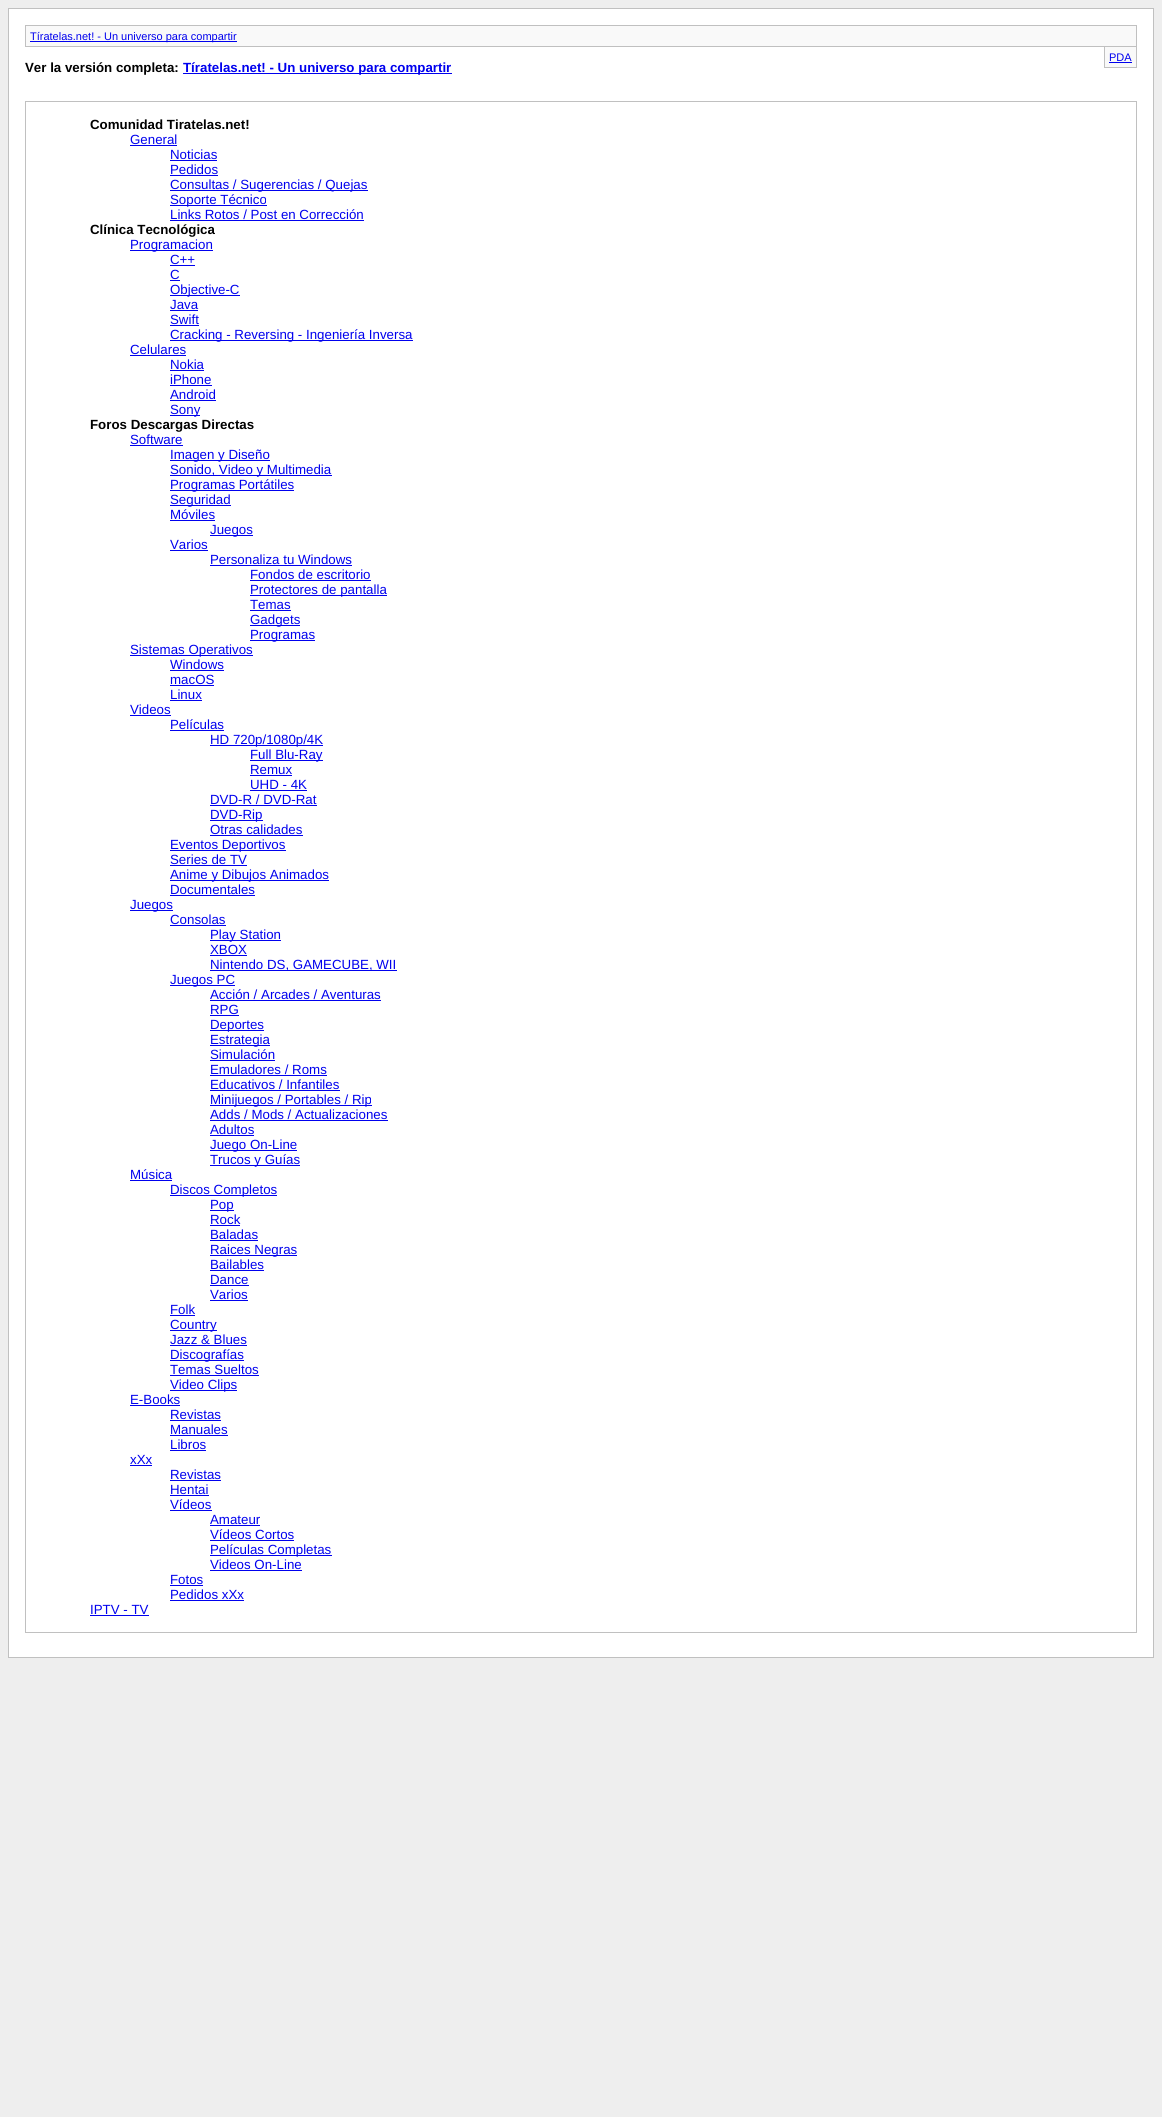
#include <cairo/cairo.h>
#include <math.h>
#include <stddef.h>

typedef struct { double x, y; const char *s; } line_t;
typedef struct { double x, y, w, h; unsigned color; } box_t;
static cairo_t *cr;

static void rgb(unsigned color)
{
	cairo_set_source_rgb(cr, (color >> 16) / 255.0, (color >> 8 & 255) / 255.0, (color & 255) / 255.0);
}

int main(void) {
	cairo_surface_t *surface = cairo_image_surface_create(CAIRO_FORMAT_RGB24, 1162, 2117);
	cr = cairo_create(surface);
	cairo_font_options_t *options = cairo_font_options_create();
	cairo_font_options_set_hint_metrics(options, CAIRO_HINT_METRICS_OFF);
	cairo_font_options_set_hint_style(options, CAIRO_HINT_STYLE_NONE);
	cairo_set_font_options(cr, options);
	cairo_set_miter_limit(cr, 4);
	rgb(0xeeeeee);
	cairo_paint(cr);
	rgb(0xffffff);
	cairo_rectangle(cr, 8.5, 8.5, 1145, 1649);
	cairo_fill_preserve(cr);
	rgb(0xc0c0c0);
	cairo_set_line_width(cr, 1);
	cairo_stroke(cr);
	rgb(0xf9f9f9);
	cairo_rectangle(cr, 25.5, 25.5, 1111, 21);
	cairo_fill_preserve(cr);
	rgb(0xc0c0c0);
	cairo_stroke(cr);
	{
		static const box_t items[] = {
			{30, 41, 207, 1, 0x0000ee},
			{1105, 47, 31, 20, 0xf9f9f9},
			{1136, 47, 1, 21, 0xc0c0c0},
			{1104, 67, 33, 1, 0xc0c0c0},
			{1104, 47, 1, 21, 0xc0c0c0},
			{1109, 62, 23, 1, 0x0000ee},
			{183, 73, 269, 1, 0x0000ee},
		};
		for (size_t i = 0; i < sizeof items / sizeof *items; i++) {
			rgb(items[i].color);
			cairo_rectangle(cr, items[i].x, items[i].y, items[i].w, items[i].h);
			cairo_fill(cr);
		}
	}
	cairo_rectangle(cr, 25.5, 101.5, 1111, 1531);
	rgb(0xc0c0c0);
	cairo_stroke(cr);
	{
		static const box_t items[] = {
			{130, 145, 47, 1, 0x0000ee},
			{170, 160, 47, 1, 0x0000ee},
			{170, 175, 48, 1, 0x0000ee},
			{170, 190, 198, 1, 0x0000ee},
			{170, 205, 97, 1, 0x0000ee},
			{170, 220, 194, 1, 0x0000ee},
			{130, 250, 83, 1, 0x0000ee},
			{170, 265, 25, 1, 0x0000ee},
			{170, 280, 10, 1, 0x0000ee},
			{170, 295, 70, 1, 0x0000ee},
			{170, 310, 28, 1, 0x0000ee},
			{170, 325, 29, 1, 0x0000ee},
			{170, 340, 243, 1, 0x0000ee},
			{130, 355, 56, 1, 0x0000ee},
			{170, 370, 34, 1, 0x0000ee},
			{170, 385, 42, 1, 0x0000ee},
			{170, 400, 46, 1, 0x0000ee},
			{170, 415, 30, 1, 0x0000ee},
			{130, 445, 53, 1, 0x0000ee},
			{170, 460, 100, 1, 0x0000ee},
			{170, 475, 162, 1, 0x0000ee},
			{170, 490, 124, 1, 0x0000ee},
			{170, 505, 61, 1, 0x0000ee},
			{170, 520, 45, 1, 0x0000ee},
			{210, 535, 43, 1, 0x0000ee},
			{170, 550, 38, 1, 0x0000ee},
			{210, 565, 142, 1, 0x0000ee},
			{250, 580, 121, 1, 0x0000ee},
			{250, 595, 137, 1, 0x0000ee},
			{250, 610, 41, 1, 0x0000ee},
			{250, 625, 50, 1, 0x0000ee},
			{250, 640, 65, 1, 0x0000ee},
			{130, 655, 123, 1, 0x0000ee},
			{170, 670, 54, 1, 0x0000ee},
			{170, 685, 44, 1, 0x0000ee},
			{170, 700, 32, 1, 0x0000ee},
			{130, 715, 41, 1, 0x0000ee},
			{170, 730, 54, 1, 0x0000ee},
			{210, 745, 113, 1, 0x0000ee},
			{250, 760, 73, 1, 0x0000ee},
			{250, 775, 42, 1, 0x0000ee},
			{250, 790, 57, 1, 0x0000ee},
			{210, 805, 107, 1, 0x0000ee},
			{210, 820, 53, 1, 0x0000ee},
			{210, 835, 93, 1, 0x0000ee},
			{170, 850, 116, 1, 0x0000ee},
			{170, 865, 77, 1, 0x0000ee},
			{170, 880, 159, 1, 0x0000ee},
			{170, 895, 85, 1, 0x0000ee},
			{130, 910, 43, 1, 0x0000ee},
			{170, 925, 56, 1, 0x0000ee},
			{210, 940, 71, 1, 0x0000ee},
			{210, 955, 37, 1, 0x0000ee},
			{210, 970, 187, 1, 0x0000ee},
			{170, 985, 65, 1, 0x0000ee},
			{210, 1000, 171, 1, 0x0000ee},
			{210, 1015, 29, 1, 0x0000ee},
			{210, 1030, 54, 1, 0x0000ee},
			{210, 1045, 60, 1, 0x0000ee},
			{210, 1060, 65, 1, 0x0000ee},
			{210, 1075, 117, 1, 0x0000ee},
			{210, 1090, 130, 1, 0x0000ee},
			{210, 1105, 162, 1, 0x0000ee},
			{210, 1120, 178, 1, 0x0000ee},
			{210, 1135, 44, 1, 0x0000ee},
			{210, 1150, 87, 1, 0x0000ee},
			{210, 1165, 90, 1, 0x0000ee},
			{130, 1180, 42, 1, 0x0000ee},
			{170, 1195, 107, 1, 0x0000ee},
			{210, 1210, 24, 1, 0x0000ee},
			{210, 1225, 30, 1, 0x0000ee},
			{210, 1240, 48, 1, 0x0000ee},
			{210, 1255, 87, 1, 0x0000ee},
			{210, 1270, 54, 1, 0x0000ee},
			{210, 1285, 39, 1, 0x0000ee},
			{210, 1300, 38, 1, 0x0000ee},
			{170, 1315, 25, 1, 0x0000ee},
			{170, 1330, 47, 1, 0x0000ee},
			{170, 1345, 77, 1, 0x0000ee},
			{170, 1360, 74, 1, 0x0000ee},
			{170, 1375, 89, 1, 0x0000ee},
			{170, 1390, 67, 1, 0x0000ee},
			{130, 1405, 50, 1, 0x0000ee},
			{170, 1420, 51, 1, 0x0000ee},
			{170, 1435, 58, 1, 0x0000ee},
			{170, 1450, 36, 1, 0x0000ee},
			{130, 1465, 22, 1, 0x0000ee},
			{170, 1480, 51, 1, 0x0000ee},
			{170, 1495, 39, 1, 0x0000ee},
			{170, 1510, 42, 1, 0x0000ee},
			{210, 1525, 50, 1, 0x0000ee},
			{210, 1540, 84, 1, 0x0000ee},
			{210, 1555, 122, 1, 0x0000ee},
			{210, 1570, 92, 1, 0x0000ee},
			{170, 1585, 33, 1, 0x0000ee},
			{170, 1600, 74, 1, 0x0000ee},
			{90, 1615, 59, 1, 0x0000ee},
		};
		for (size_t i = 0; i < sizeof items / sizeof *items; i++) {
			rgb(items[i].color);
			cairo_rectangle(cr, items[i].x, items[i].y, items[i].w, items[i].h);
			cairo_fill(cr);
		}
	}
	cairo_select_font_face(cr, "Liberation Sans", CAIRO_FONT_SLANT_NORMAL, CAIRO_FONT_WEIGHT_NORMAL);
	cairo_set_font_size(cr, 11);
	cairo_move_to(cr, 30, 40);
	cairo_show_text(cr, "Tíratelas.net! - Un universo para compartir");
	cairo_move_to(cr, 1109, 61);
	cairo_show_text(cr, "PDA");
	cairo_select_font_face(cr, "Liberation Sans", CAIRO_FONT_SLANT_NORMAL, CAIRO_FONT_WEIGHT_BOLD);
	cairo_set_font_size(cr, 13.3);
	rgb(0x000000);
	cairo_move_to(cr, 25, 72);
	cairo_show_text(cr, "Ver la versión completa:");
	rgb(0x0000ee);
	cairo_move_to(cr, 183, 72);
	cairo_show_text(cr, "Tíratelas.net! - Un universo para compartir");
	rgb(0x000000);
	cairo_move_to(cr, 90, 129);
	cairo_show_text(cr, "Comunidad Tiratelas.net!");
	cairo_select_font_face(cr, "Liberation Sans", CAIRO_FONT_SLANT_NORMAL, CAIRO_FONT_WEIGHT_NORMAL);
	rgb(0x0000ee);
	{
		static const line_t items[] = {
			{130, 144, "General"},
			{170, 159, "Noticias"},
			{170, 174, "Pedidos"},
			{170, 189, "Consultas / Sugerencias / Quejas"},
			{170, 204, "Soporte Técnico"},
			{170, 219, "Links Rotos / Post en Corrección"},
		};
		for (size_t i = 0; i < sizeof items / sizeof *items; i++) {
			cairo_move_to(cr, items[i].x, items[i].y);
			cairo_show_text(cr, items[i].s);
		}
	}
	cairo_select_font_face(cr, "Liberation Sans", CAIRO_FONT_SLANT_NORMAL, CAIRO_FONT_WEIGHT_BOLD);
	rgb(0x000000);
	cairo_move_to(cr, 90, 234);
	cairo_show_text(cr, "Clínica Tecnológica");
	cairo_select_font_face(cr, "Liberation Sans", CAIRO_FONT_SLANT_NORMAL, CAIRO_FONT_WEIGHT_NORMAL);
	rgb(0x0000ee);
	{
		static const line_t items[] = {
			{130, 249, "Programacion"},
			{170, 264, "C++"},
			{170, 279, "C"},
			{170, 294, "Objective-C"},
			{170, 309, "Java"},
			{170, 324, "Swift"},
			{170, 339, "Cracking - Reversing - Ingeniería Inversa"},
			{130, 354, "Celulares"},
			{170, 369, "Nokia"},
			{170, 384, "iPhone"},
			{170, 399, "Android"},
			{170, 414, "Sony"},
		};
		for (size_t i = 0; i < sizeof items / sizeof *items; i++) {
			cairo_move_to(cr, items[i].x, items[i].y);
			cairo_show_text(cr, items[i].s);
		}
	}
	cairo_select_font_face(cr, "Liberation Sans", CAIRO_FONT_SLANT_NORMAL, CAIRO_FONT_WEIGHT_BOLD);
	rgb(0x000000);
	cairo_move_to(cr, 90, 429);
	cairo_show_text(cr, "Foros Descargas Directas");
	cairo_select_font_face(cr, "Liberation Sans", CAIRO_FONT_SLANT_NORMAL, CAIRO_FONT_WEIGHT_NORMAL);
	rgb(0x0000ee);
	{
		static const line_t items[] = {
			{130, 444, "Software"},
			{170, 459, "Imagen y Diseño"},
			{170, 474, "Sonido, Video y Multimedia"},
			{170, 489, "Programas Portátiles"},
			{170, 504, "Seguridad"},
			{170, 519, "Móviles"},
			{210, 534, "Juegos"},
			{170, 549, "Varios"},
			{210, 564, "Personaliza tu Windows"},
			{250, 579, "Fondos de escritorio"},
			{250, 594, "Protectores de pantalla"},
			{250, 609, "Temas"},
			{250, 624, "Gadgets"},
			{250, 639, "Programas"},
			{130, 654, "Sistemas Operativos"},
			{170, 669, "Windows"},
			{170, 684, "macOS"},
			{170, 699, "Linux"},
			{130, 714, "Videos"},
			{170, 729, "Películas"},
			{210, 744, "HD 720p/1080p/4K"},
			{250, 759, "Full Blu-Ray"},
			{250, 774, "Remux"},
			{250, 789, "UHD - 4K"},
			{210, 804, "DVD-R / DVD-Rat"},
			{210, 819, "DVD-Rip"},
			{210, 834, "Otras calidades"},
			{170, 849, "Eventos Deportivos"},
			{170, 864, "Series de TV"},
			{170, 879, "Anime y Dibujos Animados"},
			{170, 894, "Documentales"},
			{130, 909, "Juegos"},
			{170, 924, "Consolas"},
			{210, 939, "Play Station"},
			{210, 954, "XBOX"},
			{210, 969, "Nintendo DS, GAMECUBE, WII"},
			{170, 984, "Juegos PC"},
			{210, 999, "Acción / Arcades / Aventuras"},
			{210, 1014, "RPG"},
			{210, 1029, "Deportes"},
			{210, 1044, "Estrategia"},
			{210, 1059, "Simulación"},
			{210, 1074, "Emuladores / Roms"},
			{210, 1089, "Educativos / Infantiles"},
			{210, 1104, "Minijuegos / Portables / Rip"},
			{210, 1119, "Adds / Mods / Actualizaciones"},
			{210, 1134, "Adultos"},
			{210, 1149, "Juego On-Line"},
			{210, 1164, "Trucos y Guías"},
			{130, 1179, "Música"},
			{170, 1194, "Discos Completos"},
			{210, 1209, "Pop"},
			{210, 1224, "Rock"},
			{210, 1239, "Baladas"},
			{210, 1254, "Raices Negras"},
			{210, 1269, "Bailables"},
			{210, 1284, "Dance"},
			{210, 1299, "Varios"},
			{170, 1314, "Folk"},
			{170, 1329, "Country"},
			{170, 1344, "Jazz & Blues"},
			{170, 1359, "Discografías"},
			{170, 1374, "Temas Sueltos"},
			{170, 1389, "Video Clips"},
			{130, 1404, "E-Books"},
			{170, 1419, "Revistas"},
			{170, 1434, "Manuales"},
			{170, 1449, "Libros"},
			{130, 1464, "xXx"},
			{170, 1479, "Revistas"},
			{170, 1494, "Hentai"},
			{170, 1509, "Vídeos"},
			{210, 1524, "Amateur"},
			{210, 1539, "Vídeos Cortos"},
			{210, 1554, "Películas Completas"},
			{210, 1569, "Videos On-Line"},
			{170, 1584, "Fotos"},
			{170, 1599, "Pedidos xXx"},
			{90, 1614, "IPTV - TV"},
		};
		for (size_t i = 0; i < sizeof items / sizeof *items; i++) {
			cairo_move_to(cr, items[i].x, items[i].y);
			cairo_show_text(cr, items[i].s);
		}
	}
	cairo_surface_write_to_png(surface, "page.png");
	cairo_font_options_destroy(options);
	cairo_destroy(cr);
	cairo_surface_destroy(surface);
	return 0;
}
